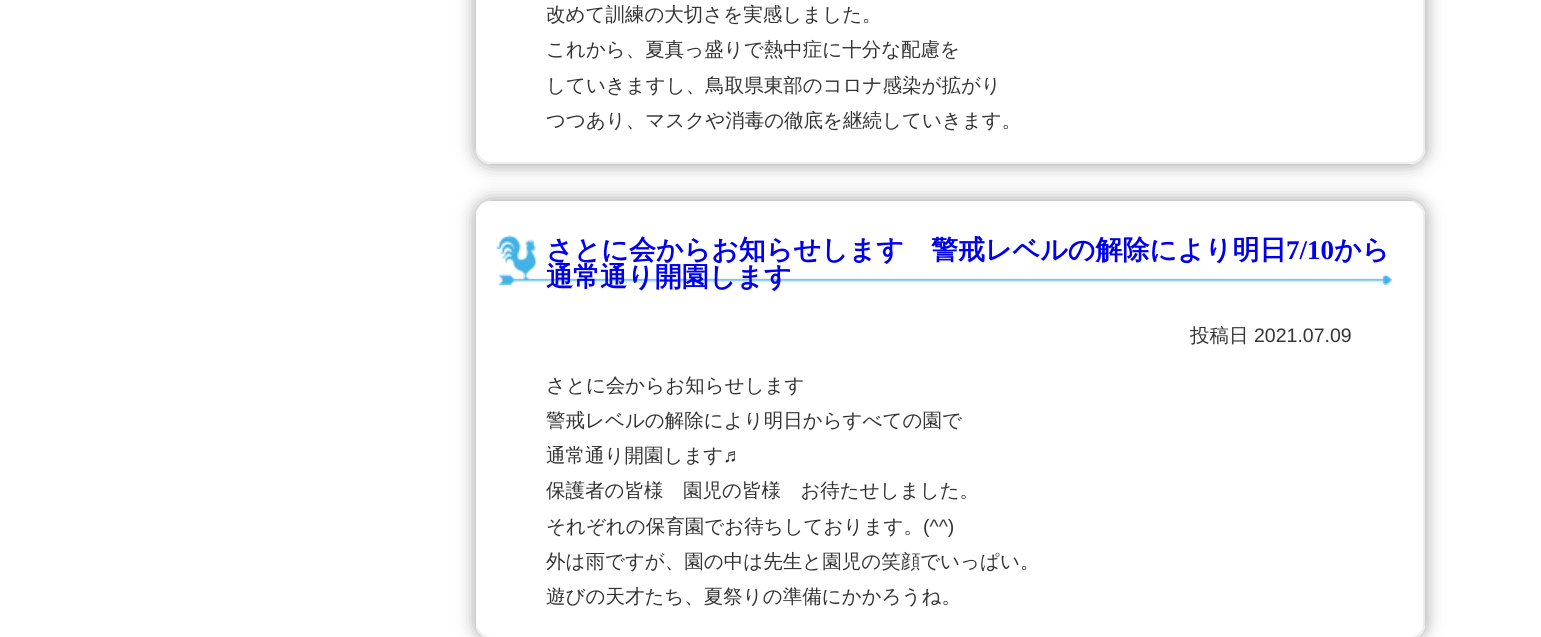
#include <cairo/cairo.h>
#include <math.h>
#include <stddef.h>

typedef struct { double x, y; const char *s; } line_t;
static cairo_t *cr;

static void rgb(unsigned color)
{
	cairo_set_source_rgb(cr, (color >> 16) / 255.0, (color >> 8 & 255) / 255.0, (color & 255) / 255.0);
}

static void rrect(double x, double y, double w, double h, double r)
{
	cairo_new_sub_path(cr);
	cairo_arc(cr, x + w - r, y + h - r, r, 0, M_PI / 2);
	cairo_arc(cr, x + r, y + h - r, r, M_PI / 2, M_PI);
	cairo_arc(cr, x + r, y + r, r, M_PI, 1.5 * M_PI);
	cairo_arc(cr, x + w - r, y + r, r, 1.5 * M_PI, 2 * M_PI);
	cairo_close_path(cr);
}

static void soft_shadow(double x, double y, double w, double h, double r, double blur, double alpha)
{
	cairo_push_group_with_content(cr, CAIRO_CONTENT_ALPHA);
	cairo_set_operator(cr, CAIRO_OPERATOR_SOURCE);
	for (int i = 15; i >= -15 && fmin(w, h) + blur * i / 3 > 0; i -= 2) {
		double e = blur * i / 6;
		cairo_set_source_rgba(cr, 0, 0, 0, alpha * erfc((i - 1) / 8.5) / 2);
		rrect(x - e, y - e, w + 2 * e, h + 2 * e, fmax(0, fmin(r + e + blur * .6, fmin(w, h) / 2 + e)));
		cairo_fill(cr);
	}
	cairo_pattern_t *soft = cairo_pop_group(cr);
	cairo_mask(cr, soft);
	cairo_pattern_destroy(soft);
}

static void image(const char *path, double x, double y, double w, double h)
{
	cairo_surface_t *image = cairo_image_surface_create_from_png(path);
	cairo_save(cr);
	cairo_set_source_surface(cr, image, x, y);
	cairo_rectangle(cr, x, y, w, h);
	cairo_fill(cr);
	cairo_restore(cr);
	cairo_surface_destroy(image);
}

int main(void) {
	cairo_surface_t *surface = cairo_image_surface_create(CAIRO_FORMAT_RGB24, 1541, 637);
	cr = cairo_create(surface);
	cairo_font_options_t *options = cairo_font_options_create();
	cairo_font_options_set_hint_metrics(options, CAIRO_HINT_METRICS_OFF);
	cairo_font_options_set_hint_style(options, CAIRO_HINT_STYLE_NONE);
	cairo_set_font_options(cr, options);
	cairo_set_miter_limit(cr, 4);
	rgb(0xffffff);
	cairo_paint(cr);
	cairo_save(cr);
	cairo_set_fill_rule(cr, CAIRO_FILL_RULE_EVEN_ODD);
	cairo_new_path(cr);
	cairo_move_to(cr, 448, 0);
	cairo_line_to(cr, 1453, 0);
	cairo_line_to(cr, 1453, 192);
	cairo_line_to(cr, 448, 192);
	cairo_close_path(cr);
	cairo_move_to(cr, 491, -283);
	cairo_line_to(cr, 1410, -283);
	cairo_curve_to(cr, 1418.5, -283, 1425, -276.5, 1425, -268);
	cairo_line_to(cr, 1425, 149);
	cairo_curve_to(cr, 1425, 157.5, 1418.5, 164, 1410, 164);
	cairo_line_to(cr, 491, 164);
	cairo_curve_to(cr, 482.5, 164, 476, 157.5, 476, 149);
	cairo_line_to(cr, 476, -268);
	cairo_curve_to(cr, 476, -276.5, 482.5, -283, 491, -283);
	cairo_close_path(cr);
	cairo_clip(cr);
	rgb(0x999999);
	soft_shadow(476, -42, 949, 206, 15, 9, 1);
	cairo_restore(cr);
	rrect(477, -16, 947, 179, 14);
	rgb(0xeeeeee);
	cairo_stroke(cr);
	rgb(0xffffff);
	rrect(476, -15, 946, 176, 15);
	cairo_fill(cr);
	cairo_save(cr);
	cairo_set_fill_rule(cr, CAIRO_FILL_RULE_EVEN_ODD);
	cairo_new_path(cr);
	cairo_move_to(cr, 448, 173);
	cairo_line_to(cr, 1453, 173);
	cairo_line_to(cr, 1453, 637);
	cairo_line_to(cr, 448, 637);
	cairo_close_path(cr);
	cairo_move_to(cr, 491, 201);
	cairo_line_to(cr, 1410, 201);
	cairo_curve_to(cr, 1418.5, 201, 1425, 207.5, 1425, 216);
	cairo_line_to(cr, 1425, 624);
	cairo_curve_to(cr, 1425, 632.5, 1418.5, 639, 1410, 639);
	cairo_line_to(cr, 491, 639);
	cairo_curve_to(cr, 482.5, 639, 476, 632.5, 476, 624);
	cairo_line_to(cr, 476, 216);
	cairo_curve_to(cr, 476, 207.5, 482.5, 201, 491, 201);
	cairo_close_path(cr);
	cairo_clip(cr);
	rgb(0x999999);
	soft_shadow(476, 201, 949, 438, 15, 9, 1);
	cairo_restore(cr);
	rrect(477, 202, 947, 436, 14);
	rgb(0xeeeeee);
	cairo_stroke(cr);
	rgb(0xffffff);
	rrect(476, 201, 946, 435, 15);
	cairo_fill(cr);
	image("img/1.png", 496, 235, 896, 50);
	cairo_select_font_face(cr, "WenQuanYi Zen Hei Medium", CAIRO_FONT_SLANT_NORMAL, CAIRO_FONT_WEIGHT_NORMAL);
	cairo_set_font_size(cr, 19.5);
	rgb(0x333333);
	{
		static const line_t items[] = {
			{546, 21, "改めて訓練の大切さを実感しました。"},
			{546, 56, "これから、夏真っ盛りで熱中症に十分な配慮を"},
			{546, 92, "していきますし、鳥取県東部のコロナ感染が拡がり"},
			{546, 127, "つつあり、マスクや消毒の徹底を継続していきます。"},
		};
		for (size_t i = 0; i < sizeof items / sizeof *items; i++) {
			cairo_move_to(cr, items[i].x, items[i].y);
			cairo_show_text(cr, items[i].s);
		}
	}
	cairo_select_font_face(cr, "WenQuanYi Zen Hei", CAIRO_FONT_SLANT_NORMAL, CAIRO_FONT_WEIGHT_BOLD);
	cairo_set_font_size(cr, 27);
	rgb(0x0000ee);
	cairo_move_to(cr, 546, 259);
	cairo_show_text(cr, "さとに会からお知らせします　警戒レベルの解除により明日");
	cairo_select_font_face(cr, "Liberation Serif", CAIRO_FONT_SLANT_NORMAL, CAIRO_FONT_WEIGHT_BOLD);
	cairo_move_to(cr, 1286, 259);
	cairo_show_text(cr, "7/10");
	cairo_select_font_face(cr, "WenQuanYi Zen Hei", CAIRO_FONT_SLANT_NORMAL, CAIRO_FONT_WEIGHT_BOLD);
	cairo_move_to(cr, 1334, 259);
	cairo_show_text(cr, "から");
	cairo_move_to(cr, 546, 286);
	cairo_show_text(cr, "通常通り開園します");
	cairo_select_font_face(cr, "WenQuanYi Zen Hei Medium", CAIRO_FONT_SLANT_NORMAL, CAIRO_FONT_WEIGHT_NORMAL);
	cairo_set_font_size(cr, 19.5);
	rgb(0x333333);
	cairo_move_to(cr, 1190, 342);
	cairo_show_text(cr, "投稿日");
	cairo_select_font_face(cr, "Liberation Sans", CAIRO_FONT_SLANT_NORMAL, CAIRO_FONT_WEIGHT_NORMAL);
	cairo_move_to(cr, 1254, 342);
	cairo_show_text(cr, "2021.07.09");
	cairo_select_font_face(cr, "WenQuanYi Zen Hei Medium", CAIRO_FONT_SLANT_NORMAL, CAIRO_FONT_WEIGHT_NORMAL);
	{
		static const line_t items[] = {
			{546, 392, "さとに会からお知らせします"},
			{546, 427, "警戒レベルの解除により明日からすべての園で"},
			{546, 462, "通常通り開園します"},
		};
		for (size_t i = 0; i < sizeof items / sizeof *items; i++) {
			cairo_move_to(cr, items[i].x, items[i].y);
			cairo_show_text(cr, items[i].s);
		}
	}
	cairo_select_font_face(cr, "Liberation Sans", CAIRO_FONT_SLANT_NORMAL, CAIRO_FONT_WEIGHT_NORMAL);
	cairo_move_to(cr, 723, 462);
	cairo_show_text(cr, "♬");
	cairo_select_font_face(cr, "WenQuanYi Zen Hei Medium", CAIRO_FONT_SLANT_NORMAL, CAIRO_FONT_WEIGHT_NORMAL);
	cairo_move_to(cr, 546, 497);
	cairo_show_text(cr, "保護者の皆様　園児の皆様　お待たせしました。");
	cairo_move_to(cr, 546, 533);
	cairo_show_text(cr, "それぞれの保育園でお待ちしております。");
	cairo_select_font_face(cr, "Liberation Sans", CAIRO_FONT_SLANT_NORMAL, CAIRO_FONT_WEIGHT_NORMAL);
	cairo_move_to(cr, 923, 533);
	cairo_show_text(cr, "(^^)");
	cairo_select_font_face(cr, "WenQuanYi Zen Hei Medium", CAIRO_FONT_SLANT_NORMAL, CAIRO_FONT_WEIGHT_NORMAL);
	cairo_move_to(cr, 546, 568);
	cairo_show_text(cr, "外は雨ですが、園の中は先生と園児の笑顔でいっぱい。");
	cairo_move_to(cr, 546, 603);
	cairo_show_text(cr, "遊びの天才たち、夏祭りの準備にかかろうね。");
	cairo_surface_write_to_png(surface, "page.png");
	cairo_font_options_destroy(options);
	cairo_destroy(cr);
	cairo_surface_destroy(surface);
	return 0;
}
